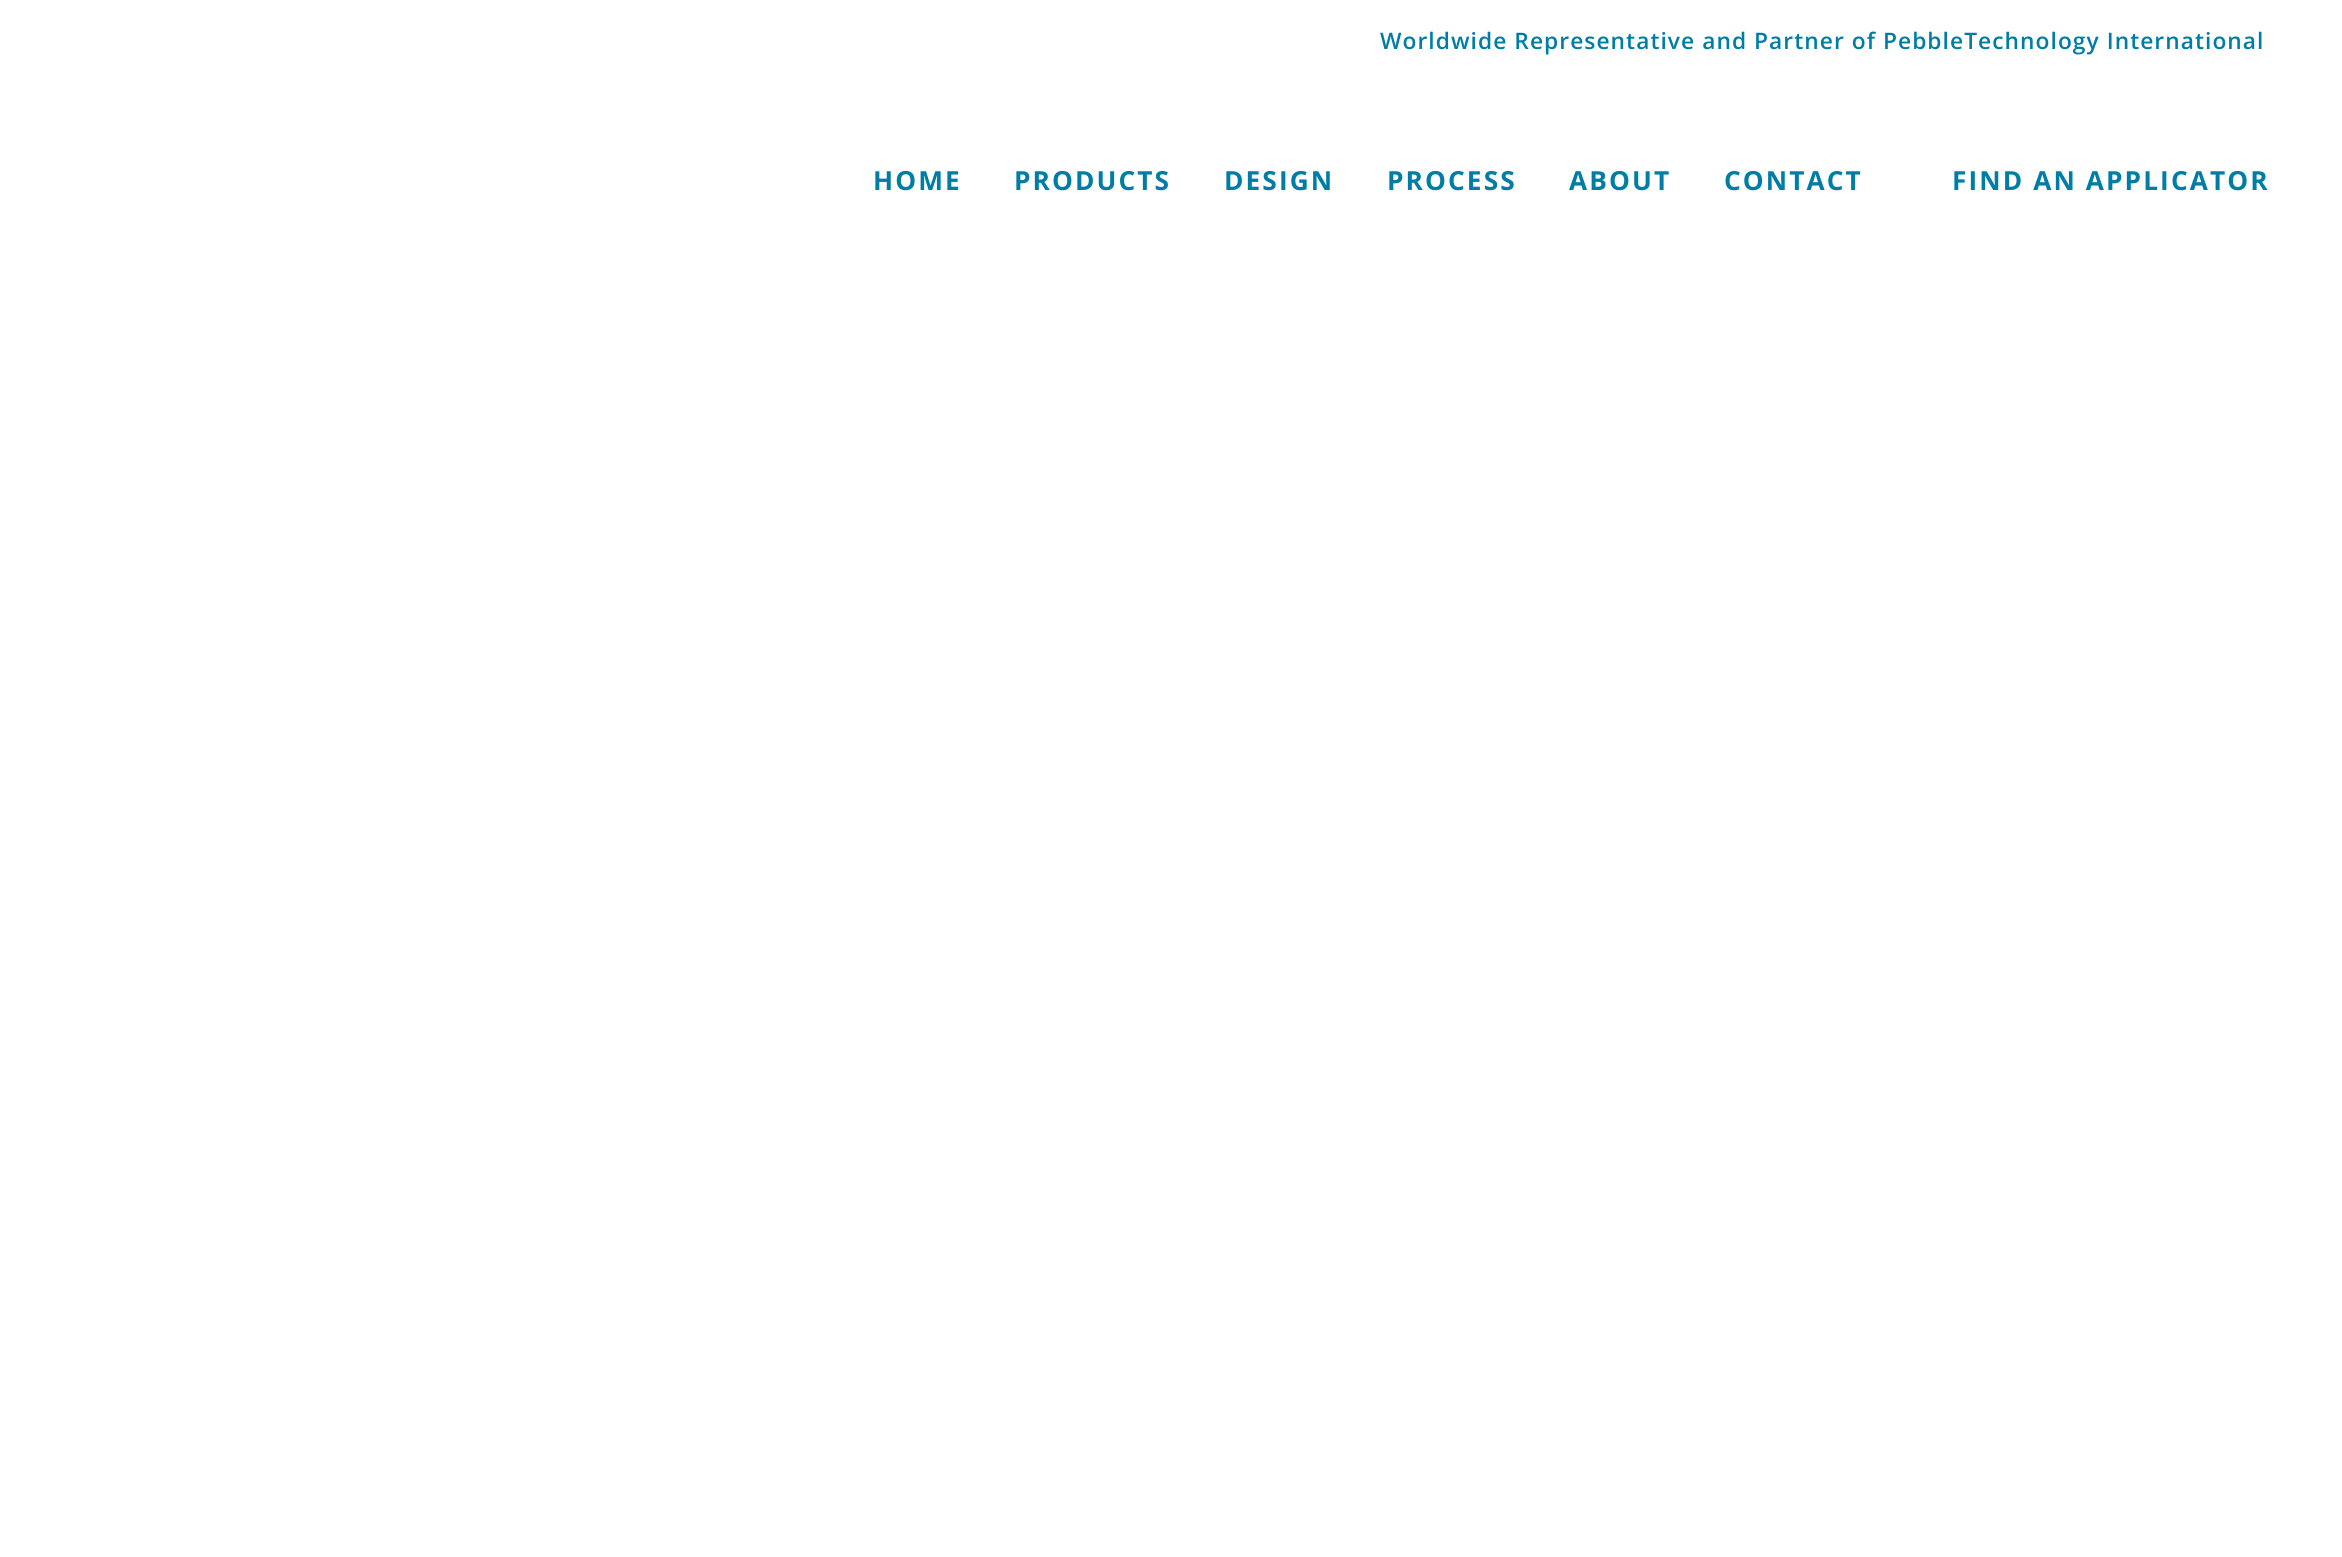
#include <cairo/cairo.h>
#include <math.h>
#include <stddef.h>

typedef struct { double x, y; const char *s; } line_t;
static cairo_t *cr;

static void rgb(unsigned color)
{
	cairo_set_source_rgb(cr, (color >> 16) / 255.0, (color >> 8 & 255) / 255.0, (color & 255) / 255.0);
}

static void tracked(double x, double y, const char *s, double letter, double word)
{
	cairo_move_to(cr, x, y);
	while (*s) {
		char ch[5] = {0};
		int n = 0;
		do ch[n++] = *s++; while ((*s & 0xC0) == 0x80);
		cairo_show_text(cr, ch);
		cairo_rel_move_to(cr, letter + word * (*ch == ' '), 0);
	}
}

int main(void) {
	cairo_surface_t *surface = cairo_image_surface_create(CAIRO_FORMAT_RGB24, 2342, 1557);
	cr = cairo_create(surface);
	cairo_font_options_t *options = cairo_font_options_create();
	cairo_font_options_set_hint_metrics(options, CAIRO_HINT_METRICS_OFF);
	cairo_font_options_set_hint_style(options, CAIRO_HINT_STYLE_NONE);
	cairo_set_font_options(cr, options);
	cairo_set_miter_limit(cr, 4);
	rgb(0xffffff);
	cairo_paint(cr);
	cairo_select_font_face(cr, "Open Sans SemiBold", CAIRO_FONT_SLANT_NORMAL, CAIRO_FONT_WEIGHT_NORMAL);
	cairo_set_font_size(cr, 22.75);
	rgb(0x007da5);
	tracked(1380, 49, "Worldwide Representative and Partner of PebbleTechnology International", 1.05, 0);
	cairo_select_font_face(cr, "Open Sans", CAIRO_FONT_SLANT_NORMAL, CAIRO_FONT_WEIGHT_BOLD);
	cairo_set_font_size(cr, 26.25);
	{
		static const line_t items[] = {
			{873, 190, "HOME"},
			{1014, 190, "PRODUCTS"},
			{1224, 190, "DESIGN"},
			{1387, 190, "PROCESS"},
			{1569, 190, "ABOUT"},
			{1724, 190, "CONTACT"},
			{1952, 190, "FIND AN APPLICATOR"},
		};
		for (size_t i = 0; i < sizeof items / sizeof *items; i++) {
			tracked(items[i].x, items[i].y, items[i].s, 2.1, 0);
		}
	}
	cairo_surface_write_to_png(surface, "page.png");
	cairo_font_options_destroy(options);
	cairo_destroy(cr);
	cairo_surface_destroy(surface);
	return 0;
}
